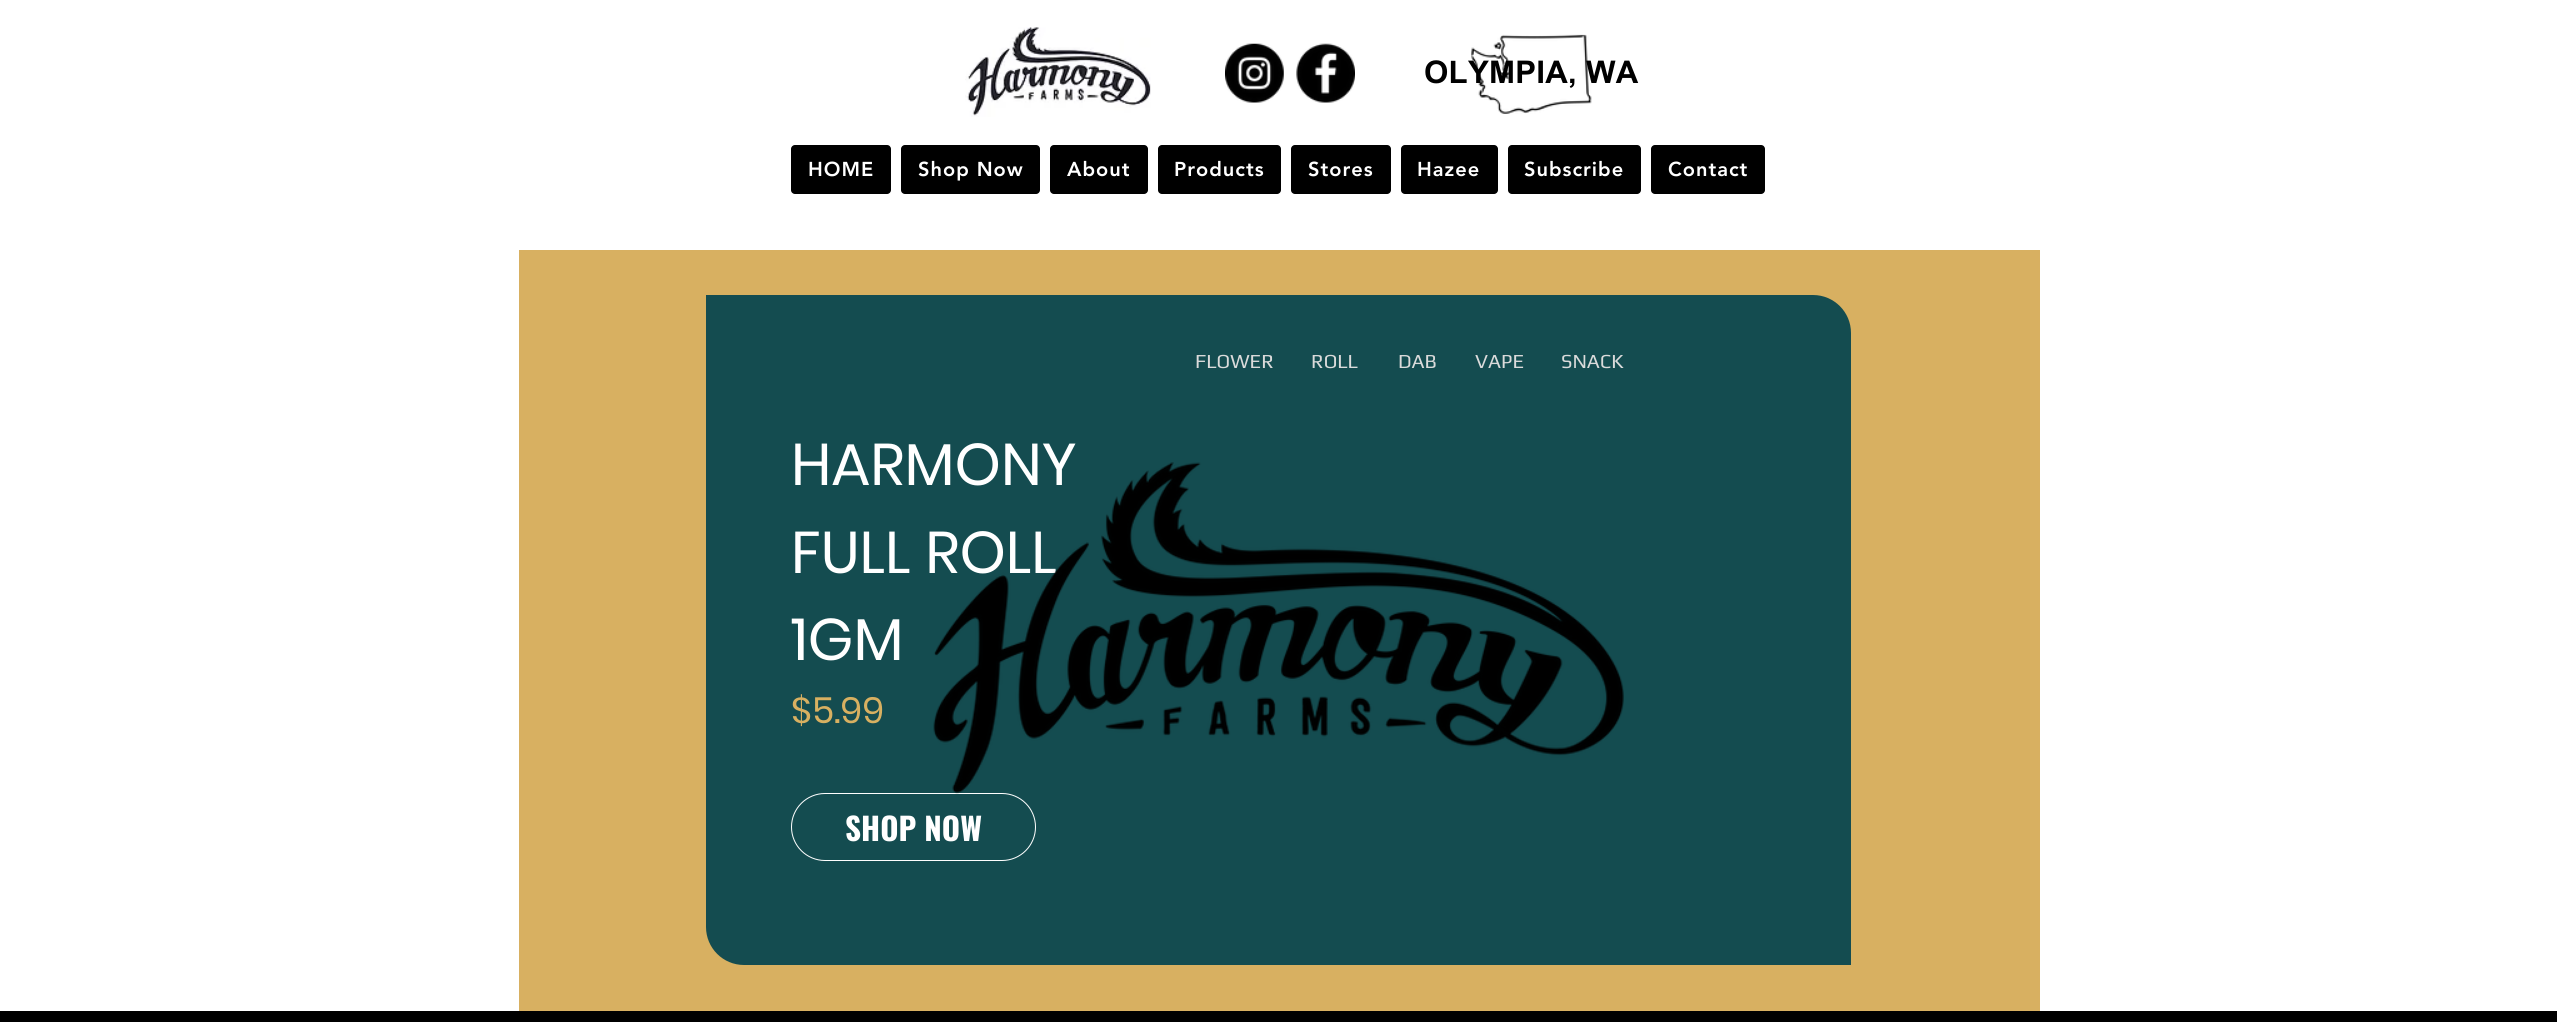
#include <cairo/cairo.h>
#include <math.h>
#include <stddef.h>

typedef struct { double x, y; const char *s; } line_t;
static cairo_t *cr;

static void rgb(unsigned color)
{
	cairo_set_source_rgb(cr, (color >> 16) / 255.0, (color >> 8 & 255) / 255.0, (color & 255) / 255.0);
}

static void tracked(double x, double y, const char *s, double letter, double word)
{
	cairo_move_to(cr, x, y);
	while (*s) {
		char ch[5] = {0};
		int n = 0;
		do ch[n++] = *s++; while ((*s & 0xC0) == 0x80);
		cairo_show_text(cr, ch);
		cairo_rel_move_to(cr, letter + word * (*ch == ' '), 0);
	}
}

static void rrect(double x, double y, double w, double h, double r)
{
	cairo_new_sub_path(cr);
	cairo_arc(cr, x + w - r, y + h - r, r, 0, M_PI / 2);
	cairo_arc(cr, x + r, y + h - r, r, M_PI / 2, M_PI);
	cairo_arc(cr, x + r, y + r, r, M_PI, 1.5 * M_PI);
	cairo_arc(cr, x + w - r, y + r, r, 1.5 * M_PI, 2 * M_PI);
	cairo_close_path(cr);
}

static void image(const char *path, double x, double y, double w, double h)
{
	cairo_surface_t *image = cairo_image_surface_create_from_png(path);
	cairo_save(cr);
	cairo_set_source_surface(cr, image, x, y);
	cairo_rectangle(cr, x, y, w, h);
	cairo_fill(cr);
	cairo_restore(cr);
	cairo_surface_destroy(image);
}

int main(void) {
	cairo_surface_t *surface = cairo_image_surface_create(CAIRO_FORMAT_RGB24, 2557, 1022);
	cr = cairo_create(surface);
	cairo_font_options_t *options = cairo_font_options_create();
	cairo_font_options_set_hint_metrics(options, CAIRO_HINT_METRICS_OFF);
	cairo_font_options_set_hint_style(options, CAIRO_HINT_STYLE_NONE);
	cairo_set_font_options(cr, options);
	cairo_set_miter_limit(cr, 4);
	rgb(0xffffff);
	cairo_paint(cr);
	image("img/1.png", 965, 27, 186, 90);
	image("img/2.png", 1225, 43, 59, 60);
	image("img/3.png", 1296, 43, 59, 60);
	rgb(0x000000);
	rrect(791, 145, 100, 49, 4);
	cairo_fill(cr);
	rrect(901, 145, 139, 49, 4);
	cairo_fill(cr);
	rrect(1050, 145, 98, 49, 4);
	cairo_fill(cr);
	rrect(1158, 145, 123, 49, 4);
	cairo_fill(cr);
	rrect(1291, 145, 100, 49, 4);
	cairo_fill(cr);
	rrect(1401, 145, 97, 49, 4);
	cairo_fill(cr);
	rrect(1508, 145, 133, 49, 4);
	cairo_fill(cr);
	rrect(1651, 145, 114, 49, 4);
	cairo_fill(cr);
	rgb(0xd8b061);
	cairo_rectangle(cr, 519, 250, 1521, 761);
	cairo_fill(cr);
	rgb(0x144c50);
	cairo_new_path(cr);
	cairo_move_to(cr, 706, 295);
	cairo_line_to(cr, 1813, 295);
	cairo_curve_to(cr, 1834, 295, 1851, 312, 1851, 333);
	cairo_line_to(cr, 1851, 965);
	cairo_line_to(cr, 744, 965);
	cairo_curve_to(cr, 723, 965, 706, 948, 706, 927);
	cairo_close_path(cr);
	cairo_fill(cr);
	rrect(791.5, 793.5, 244, 67, 33.5);
	rgb(0xffffff);
	cairo_set_line_width(cr, 1);
	cairo_stroke(cr);
	rgb(0x000000);
	cairo_rectangle(cr, 0, 1011, 2557, 11);
	cairo_fill(cr);
	cairo_select_font_face(cr, "Arial", CAIRO_FONT_SLANT_NORMAL, CAIRO_FONT_WEIGHT_BOLD);
	cairo_set_font_size(cr, 31.25);
	tracked(1424, 83, "OLYMPIA, WA", 0.25, 0);
	image("img/4.png", 1471, 34, 121, 80);
	cairo_select_font_face(cr, "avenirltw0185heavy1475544 Black", CAIRO_FONT_SLANT_NORMAL, CAIRO_FONT_WEIGHT_NORMAL);
	cairo_set_font_size(cr, 20);
	rgb(0xffffff);
	{
		static const line_t items[] = {
			{808, 176, "HOME"},
			{918, 176, "Shop Now"},
			{1067, 176, "About"},
			{1174, 176, "Products"},
			{1308, 176, "Stores"},
			{1417, 176, "Hazee"},
			{1524, 176, "Subscribe"},
			{1668, 176, "Contact"},
		};
		for (size_t i = 0; i < sizeof items / sizeof *items; i++) {
			tracked(items[i].x, items[i].y, items[i].s, 1, 0);
		}
	}
	cairo_select_font_face(cr, "Play", CAIRO_FONT_SLANT_NORMAL, CAIRO_FONT_WEIGHT_NORMAL);
	rgb(0xdbdbdb);
	{
		static const line_t items[] = {
			{1195, 368, "FLOWER"},
			{1311, 368, "ROLL"},
			{1398, 368, "DAB"},
			{1475, 368, "VAPE"},
			{1561, 368, "SNACK"},
		};
		for (size_t i = 0; i < sizeof items / sizeof *items; i++) {
			cairo_move_to(cr, items[i].x, items[i].y);
			cairo_show_text(cr, items[i].s);
		}
	}
	cairo_select_font_face(cr, "Poppins", CAIRO_FONT_SLANT_NORMAL, CAIRO_FONT_WEIGHT_NORMAL);
	cairo_set_font_size(cr, 58.75);
	rgb(0xffffff);
	{
		static const line_t items[] = {
			{791, 485, "HARMONY"},
			{791, 573, "FULL ROLL"},
			{791, 660, "1GM"},
		};
		for (size_t i = 0; i < sizeof items / sizeof *items; i++) {
			cairo_move_to(cr, items[i].x, items[i].y);
			cairo_show_text(cr, items[i].s);
		}
	}
	cairo_set_font_size(cr, 36);
	rgb(0xd8b061);
	cairo_move_to(cr, 791, 723);
	cairo_show_text(cr, "$5.99");
	cairo_select_font_face(cr, "Oswald", CAIRO_FONT_SLANT_NORMAL, CAIRO_FONT_WEIGHT_BOLD);
	cairo_set_font_size(cr, 31.25);
	rgb(0xffffff);
	cairo_move_to(cr, 845, 841);
	cairo_show_text(cr, "SHOP NOW");
	image("img/5.png", 933, 462, 691, 332);
	cairo_surface_write_to_png(surface, "page.png");
	cairo_font_options_destroy(options);
	cairo_destroy(cr);
	cairo_surface_destroy(surface);
	return 0;
}
